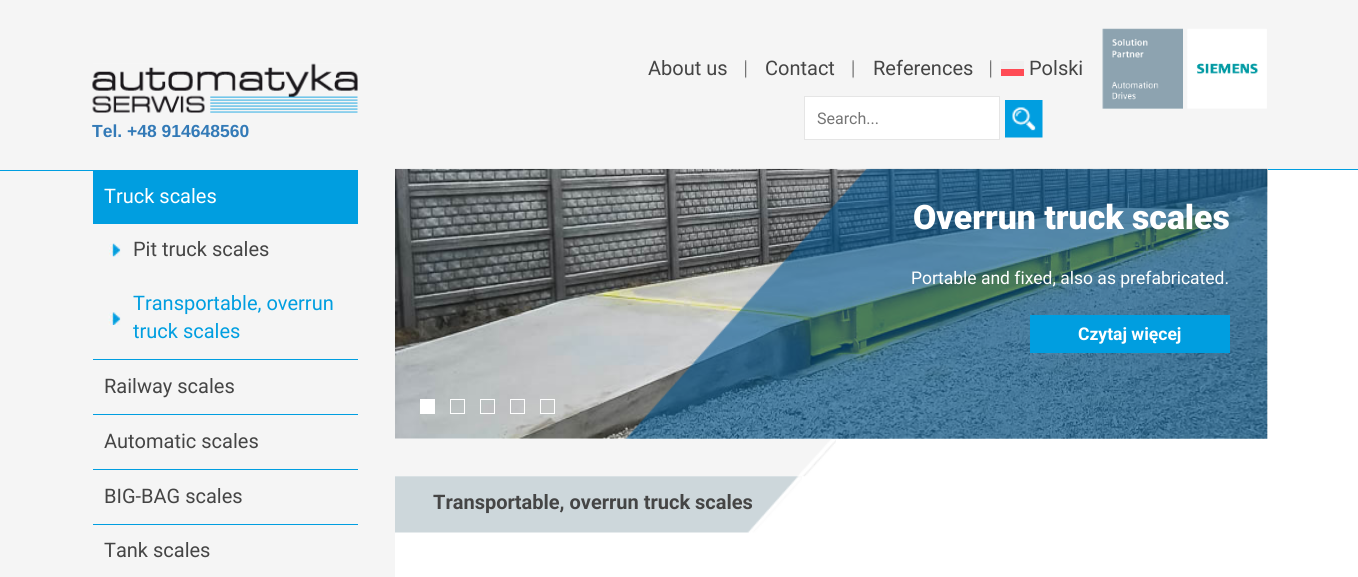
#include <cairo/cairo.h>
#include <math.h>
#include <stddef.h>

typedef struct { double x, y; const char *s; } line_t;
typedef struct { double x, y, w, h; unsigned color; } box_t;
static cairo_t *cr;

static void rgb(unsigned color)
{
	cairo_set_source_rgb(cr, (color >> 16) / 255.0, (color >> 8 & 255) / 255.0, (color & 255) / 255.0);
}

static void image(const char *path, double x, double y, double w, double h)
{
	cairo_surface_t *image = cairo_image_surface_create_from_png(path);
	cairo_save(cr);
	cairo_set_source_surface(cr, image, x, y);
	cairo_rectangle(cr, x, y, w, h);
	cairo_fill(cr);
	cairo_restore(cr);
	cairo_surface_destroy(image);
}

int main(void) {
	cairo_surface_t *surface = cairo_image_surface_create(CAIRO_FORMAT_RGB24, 1358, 577);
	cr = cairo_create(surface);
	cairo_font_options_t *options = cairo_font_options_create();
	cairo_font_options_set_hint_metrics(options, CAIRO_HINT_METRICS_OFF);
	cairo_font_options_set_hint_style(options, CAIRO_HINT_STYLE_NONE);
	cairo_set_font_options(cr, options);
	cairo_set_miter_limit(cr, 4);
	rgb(0xffffff);
	cairo_paint(cr);
	rgb(0xf5f5f5);
	cairo_rectangle(cr, 0, 0, 1286, 170);
	cairo_fill(cr);
	image("img/1.png", 745, 60, 2, 19);
	image("img/2.png", 852, 60, 2, 19);
	image("img/1.png", 990, 60, 2, 19);
	rgb(0xff4b55);
	cairo_rectangle(cr, 1001, 69, 23, 7);
	cairo_fill(cr);
	rgb(0xf0f0f0);
	cairo_rectangle(cr, 1001, 61, 23, 8);
	cairo_fill(cr);
	rgb(0xffffff);
	cairo_rectangle(cr, 804.5, 96.5, 195, 43);
	cairo_fill_preserve(cr);
	rgb(0xe5e5e5);
	cairo_set_line_width(cr, 1);
	cairo_stroke(cr);
	image("img/3.png", 1005, 100, 38, 38);
	image("img/4.png", 1102, 28, 165, 81);
	rgb(0xf5f5f5);
	cairo_rectangle(cr, 1286, 0, 72, 169);
	cairo_fill(cr);
	image("img/5.png", 92, 63, 266, 50);
	{
		static const box_t items[] = {
			{1268, 169, 90, 1, 0x009ee0},
			{74, 170, 321, 407, 0xf5f5f5},
			{0, 171, 74, 406, 0xf5f5f5},
			{0, 170, 93, 1, 0x009ee0},
			{93, 359, 265, 1, 0x009ee0},
			{93, 170, 265, 54, 0x009ee0},
		};
		for (size_t i = 0; i < sizeof items / sizeof *items; i++) {
			rgb(items[i].color);
			cairo_rectangle(cr, items[i].x, items[i].y, items[i].w, items[i].h);
			cairo_fill(cr);
		}
	}
	image("img/6.png", 109, 243, 12, 14);
	image("img/7.png", 108, 312, 13, 13);
	{
		static const box_t items[] = {
			{93, 414, 265, 1, 0x009ee0},
			{93, 469, 265, 1, 0x009ee0},
			{93, 524, 265, 1, 0x009ee0},
		};
		for (size_t i = 0; i < sizeof items / sizeof *items; i++) {
			rgb(items[i].color);
			cairo_rectangle(cr, items[i].x, items[i].y, items[i].w, items[i].h);
			cairo_fill(cr);
		}
	}
	image("img/8.png", 395, 168, 873, 271);
	image("img/9.png", 625, 168, 643, 271);
	cairo_rectangle(cr, 1030, 315, 200, 38);
	cairo_fill(cr);
	rgb(0xffffff);
	cairo_rectangle(cr, 420, 399, 15, 15);
	cairo_fill(cr);
	cairo_rectangle(cr, 450.5, 399.5, 14, 14);
	cairo_stroke(cr);
	cairo_rectangle(cr, 480.5, 399.5, 14, 14);
	cairo_stroke(cr);
	cairo_rectangle(cr, 510.5, 399.5, 14, 14);
	cairo_stroke(cr);
	cairo_rectangle(cr, 540.5, 399.5, 14, 14);
	cairo_stroke(cr);
	image("img/10.png", 395, 439, 441, 38);
	image("img/11.png", 395, 476, 407, 57);
	cairo_select_font_face(cr, "Roboto", CAIRO_FONT_SLANT_NORMAL, CAIRO_FONT_WEIGHT_NORMAL);
	cairo_set_font_size(cr, 20);
	rgb(0x454545);
	{
		static const line_t items[] = {
			{648, 75, "About us"},
			{765, 75, "Contact"},
			{873, 75, "References"},
			{1029, 75, "Polski"},
		};
		for (size_t i = 0; i < sizeof items / sizeof *items; i++) {
			cairo_move_to(cr, items[i].x, items[i].y);
			cairo_show_text(cr, items[i].s);
		}
	}
	cairo_set_font_size(cr, 16);
	rgb(0x757575);
	cairo_move_to(cr, 817, 124);
	cairo_show_text(cr, "Search...");
	cairo_select_font_face(cr, "Liberation Sans", CAIRO_FONT_SLANT_NORMAL, CAIRO_FONT_WEIGHT_BOLD);
	cairo_set_font_size(cr, 17.5);
	rgb(0x337ab7);
	cairo_move_to(cr, 92, 137);
	cairo_show_text(cr, "Tel. +48 914648560");
	cairo_select_font_face(cr, "Roboto", CAIRO_FONT_SLANT_NORMAL, CAIRO_FONT_WEIGHT_NORMAL);
	cairo_set_font_size(cr, 20);
	rgb(0xffffff);
	cairo_move_to(cr, 104, 203);
	cairo_show_text(cr, "Truck scales");
	rgb(0x454545);
	cairo_move_to(cr, 133, 256);
	cairo_show_text(cr, "Pit truck scales");
	rgb(0x009ee0);
	cairo_move_to(cr, 133, 310);
	cairo_show_text(cr, "Transportable, overrun");
	cairo_move_to(cr, 133, 338);
	cairo_show_text(cr, "truck scales");
	rgb(0x454545);
	{
		static const line_t items[] = {
			{104, 393, "Railway scales"},
			{104, 448, "Automatic scales"},
			{104, 503, "BIG-BAG scales"},
			{104, 557, "Tank scales"},
		};
		for (size_t i = 0; i < sizeof items / sizeof *items; i++) {
			cairo_move_to(cr, items[i].x, items[i].y);
			cairo_show_text(cr, items[i].s);
		}
	}
	cairo_select_font_face(cr, "Roboto Black", CAIRO_FONT_SLANT_NORMAL, CAIRO_FONT_WEIGHT_NORMAL);
	cairo_set_font_size(cr, 33.75);
	rgb(0xffffff);
	cairo_move_to(cr, 913, 229);
	cairo_show_text(cr, "Overrun truck scales");
	cairo_select_font_face(cr, "Roboto", CAIRO_FONT_SLANT_NORMAL, CAIRO_FONT_WEIGHT_NORMAL);
	cairo_set_font_size(cr, 17.5);
	cairo_move_to(cr, 911, 284);
	cairo_show_text(cr, "Portable and fixed, also as prefabricated.");
	cairo_select_font_face(cr, "Roboto", CAIRO_FONT_SLANT_NORMAL, CAIRO_FONT_WEIGHT_BOLD);
	cairo_move_to(cr, 1078, 340);
	cairo_show_text(cr, "Czytaj więcej");
	cairo_set_font_size(cr, 20);
	rgb(0x454545);
	cairo_move_to(cr, 433, 509);
	cairo_show_text(cr, "Transportable, overrun truck scales");
	cairo_surface_write_to_png(surface, "page.png");
	cairo_font_options_destroy(options);
	cairo_destroy(cr);
	cairo_surface_destroy(surface);
	return 0;
}
